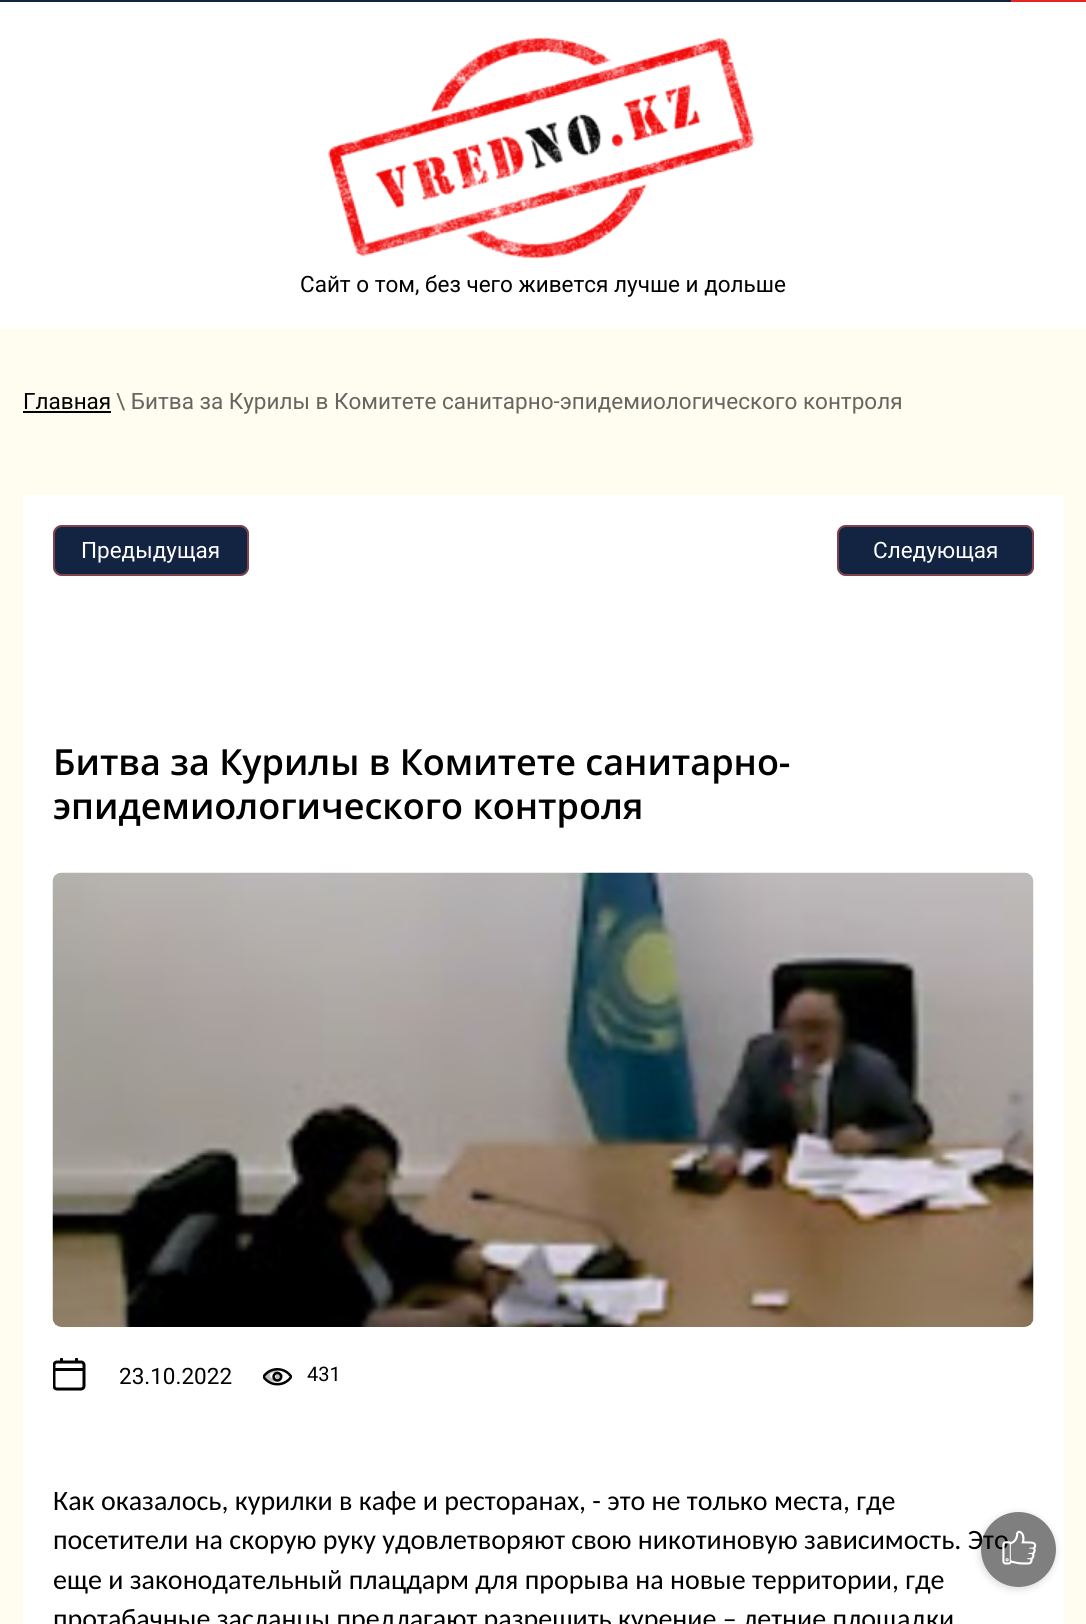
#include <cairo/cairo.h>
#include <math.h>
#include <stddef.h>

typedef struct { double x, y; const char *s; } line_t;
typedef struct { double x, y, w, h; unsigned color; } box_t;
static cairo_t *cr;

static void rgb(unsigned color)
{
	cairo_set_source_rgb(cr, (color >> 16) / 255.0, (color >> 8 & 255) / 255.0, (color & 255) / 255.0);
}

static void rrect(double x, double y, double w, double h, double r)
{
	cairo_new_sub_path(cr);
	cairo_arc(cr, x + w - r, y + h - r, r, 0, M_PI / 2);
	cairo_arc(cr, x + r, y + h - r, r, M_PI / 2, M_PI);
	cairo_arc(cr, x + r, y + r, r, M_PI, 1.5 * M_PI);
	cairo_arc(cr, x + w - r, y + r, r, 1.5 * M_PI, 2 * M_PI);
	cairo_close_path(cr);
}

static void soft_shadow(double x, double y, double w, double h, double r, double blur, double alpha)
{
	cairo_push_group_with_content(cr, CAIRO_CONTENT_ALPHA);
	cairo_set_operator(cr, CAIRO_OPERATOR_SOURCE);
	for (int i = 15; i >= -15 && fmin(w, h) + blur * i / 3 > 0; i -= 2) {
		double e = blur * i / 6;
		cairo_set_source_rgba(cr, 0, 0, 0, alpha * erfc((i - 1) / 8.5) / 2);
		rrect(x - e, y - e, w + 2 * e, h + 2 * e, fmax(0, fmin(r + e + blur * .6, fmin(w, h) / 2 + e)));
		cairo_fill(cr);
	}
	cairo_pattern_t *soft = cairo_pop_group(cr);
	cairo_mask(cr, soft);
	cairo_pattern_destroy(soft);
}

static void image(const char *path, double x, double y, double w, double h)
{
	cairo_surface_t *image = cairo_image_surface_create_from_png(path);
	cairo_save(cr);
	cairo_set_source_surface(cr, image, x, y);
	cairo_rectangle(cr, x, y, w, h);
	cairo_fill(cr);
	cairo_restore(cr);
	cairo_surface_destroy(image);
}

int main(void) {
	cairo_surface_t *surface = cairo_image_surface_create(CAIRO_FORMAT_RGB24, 1086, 1624);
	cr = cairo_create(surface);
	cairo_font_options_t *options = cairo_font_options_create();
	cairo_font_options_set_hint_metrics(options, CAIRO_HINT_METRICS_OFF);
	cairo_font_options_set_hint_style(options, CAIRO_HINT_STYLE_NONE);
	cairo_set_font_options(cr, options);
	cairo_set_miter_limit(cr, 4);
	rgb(0xfffdf0);
	cairo_paint(cr);
	{
		static const box_t items[] = {
			{0, 0, 1011, 2, 0x122442},
			{1011, 0, 75, 2, 0xe52421},
			{0, 2, 1086, 327, 0xffffff},
		};
		for (size_t i = 0; i < sizeof items / sizeof *items; i++) {
			rgb(items[i].color);
			cairo_rectangle(cr, items[i].x, items[i].y, items[i].w, items[i].h);
			cairo_fill(cr);
		}
	}
	image("img/1.png", 328, 37, 427, 222);
	rgb(0x000000);
	cairo_rectangle(cr, 23, 411, 88, 2);
	cairo_fill(cr);
	rgb(0xffffff);
	cairo_rectangle(cr, 23, 495, 1041, 1129);
	cairo_fill(cr);
	rgb(0x122442);
	rrect(53, 525, 196, 51, 9);
	cairo_fill(cr);
	rrect(54, 526, 194, 49, 8);
	cairo_set_source_rgba(cr, 0.941, 0.388, 0.329, 0.5);
	cairo_stroke(cr);
	rgb(0x122442);
	rrect(837, 525, 197, 51, 9);
	cairo_fill(cr);
	rrect(838, 526, 195, 49, 8);
	cairo_set_source_rgba(cr, 0.941, 0.388, 0.329, 0.5);
	cairo_stroke(cr);
	image("img/2.png", 52, 872, 982, 455);
	image("img/3.png", 53, 1358, 33, 33);
	image("img/4.png", 263, 1370, 21, 12);
	image("img/5.png", 263, 1368, 30, 18);
	cairo_save(cr);
	cairo_set_fill_rule(cr, CAIRO_FILL_RULE_EVEN_ODD);
	cairo_new_path(cr);
	cairo_move_to(cr, 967, 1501);
	cairo_line_to(cr, 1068, 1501);
	cairo_line_to(cr, 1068, 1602);
	cairo_line_to(cr, 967, 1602);
	cairo_close_path(cr);
	cairo_move_to(cr, 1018.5, 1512);
	cairo_curve_to(cr, 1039, 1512, 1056, 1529, 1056, 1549.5);
	cairo_curve_to(cr, 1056, 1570, 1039, 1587, 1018.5, 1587);
	cairo_curve_to(cr, 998, 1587, 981, 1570, 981, 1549.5);
	cairo_curve_to(cr, 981, 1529, 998, 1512, 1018.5, 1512);
	cairo_close_path(cr);
	cairo_clip(cr);
	rgb(0x000000);
	soft_shadow(980, 1514, 75, 75, 37.5, 4, 0.15);
	cairo_restore(cr);
	cairo_select_font_face(cr, "Roboto", CAIRO_FONT_SLANT_NORMAL, CAIRO_FONT_WEIGHT_NORMAL);
	cairo_set_font_size(cr, 22.5);
	rgb(0x000000);
	cairo_move_to(cr, 300, 292);
	cairo_show_text(cr, "Сайт о том, без чего живется лучше и дольше");
	cairo_move_to(cr, 23, 409);
	cairo_show_text(cr, "Главная");
	rgb(0x666560);
	cairo_move_to(cr, 116, 409);
	cairo_show_text(cr, "\\ Битва за Курилы в Комитете санитарно-эпидемиологического контроля");
	rgb(0xffffff);
	cairo_move_to(cr, 81, 558);
	cairo_show_text(cr, "Предыдущая");
	cairo_move_to(cr, 873, 558);
	cairo_show_text(cr, "Следующая");
	cairo_select_font_face(cr, "Open Sans SemiBold", CAIRO_FONT_SLANT_NORMAL, CAIRO_FONT_WEIGHT_NORMAL);
	cairo_set_font_size(cr, 36);
	rgb(0x000000);
	cairo_move_to(cr, 53, 775);
	cairo_show_text(cr, "Битва за Курилы в Комитете санитарно-");
	cairo_move_to(cr, 53, 819);
	cairo_show_text(cr, "эпидемиологического контроля");
	cairo_select_font_face(cr, "Roboto", CAIRO_FONT_SLANT_NORMAL, CAIRO_FONT_WEIGHT_NORMAL);
	cairo_set_font_size(cr, 22.5);
	cairo_move_to(cr, 119, 1384);
	cairo_show_text(cr, "23.10.2022");
	cairo_set_font_size(cr, 20);
	cairo_move_to(cr, 307, 1381);
	cairo_show_text(cr, "431");
	cairo_select_font_face(cr, "Carlito", CAIRO_FONT_SLANT_NORMAL, CAIRO_FONT_WEIGHT_NORMAL);
	cairo_set_font_size(cr, 28);
	{
		static const line_t items[] = {
			{53, 1510, "Как оказалось, курилки в кафе и ресторанах, - это не только места, где"},
			{53, 1549, "посетители на скорую руку удовлетворяют свою никотиновую зависимость. Это"},
			{53, 1589, "еще и законодательный плацдарм для прорыва на новые территории, где"},
			{53, 1628, "протабачные засланцы предлагают разрешить курение – летние площадки"},
		};
		for (size_t i = 0; i < sizeof items / sizeof *items; i++) {
			cairo_move_to(cr, items[i].x, items[i].y);
			cairo_show_text(cr, items[i].s);
		}
	}
	cairo_set_source_rgba(cr, 0, 0, 0, 0.5);
	cairo_new_path(cr);
	cairo_arc(cr, 1018.5, 1549.5, 37.5, 0, 2 * M_PI);
	cairo_fill(cr);
	image("img/6.png", 1002, 1530, 35, 35);
	cairo_surface_write_to_png(surface, "page.png");
	cairo_font_options_destroy(options);
	cairo_destroy(cr);
	cairo_surface_destroy(surface);
	return 0;
}
